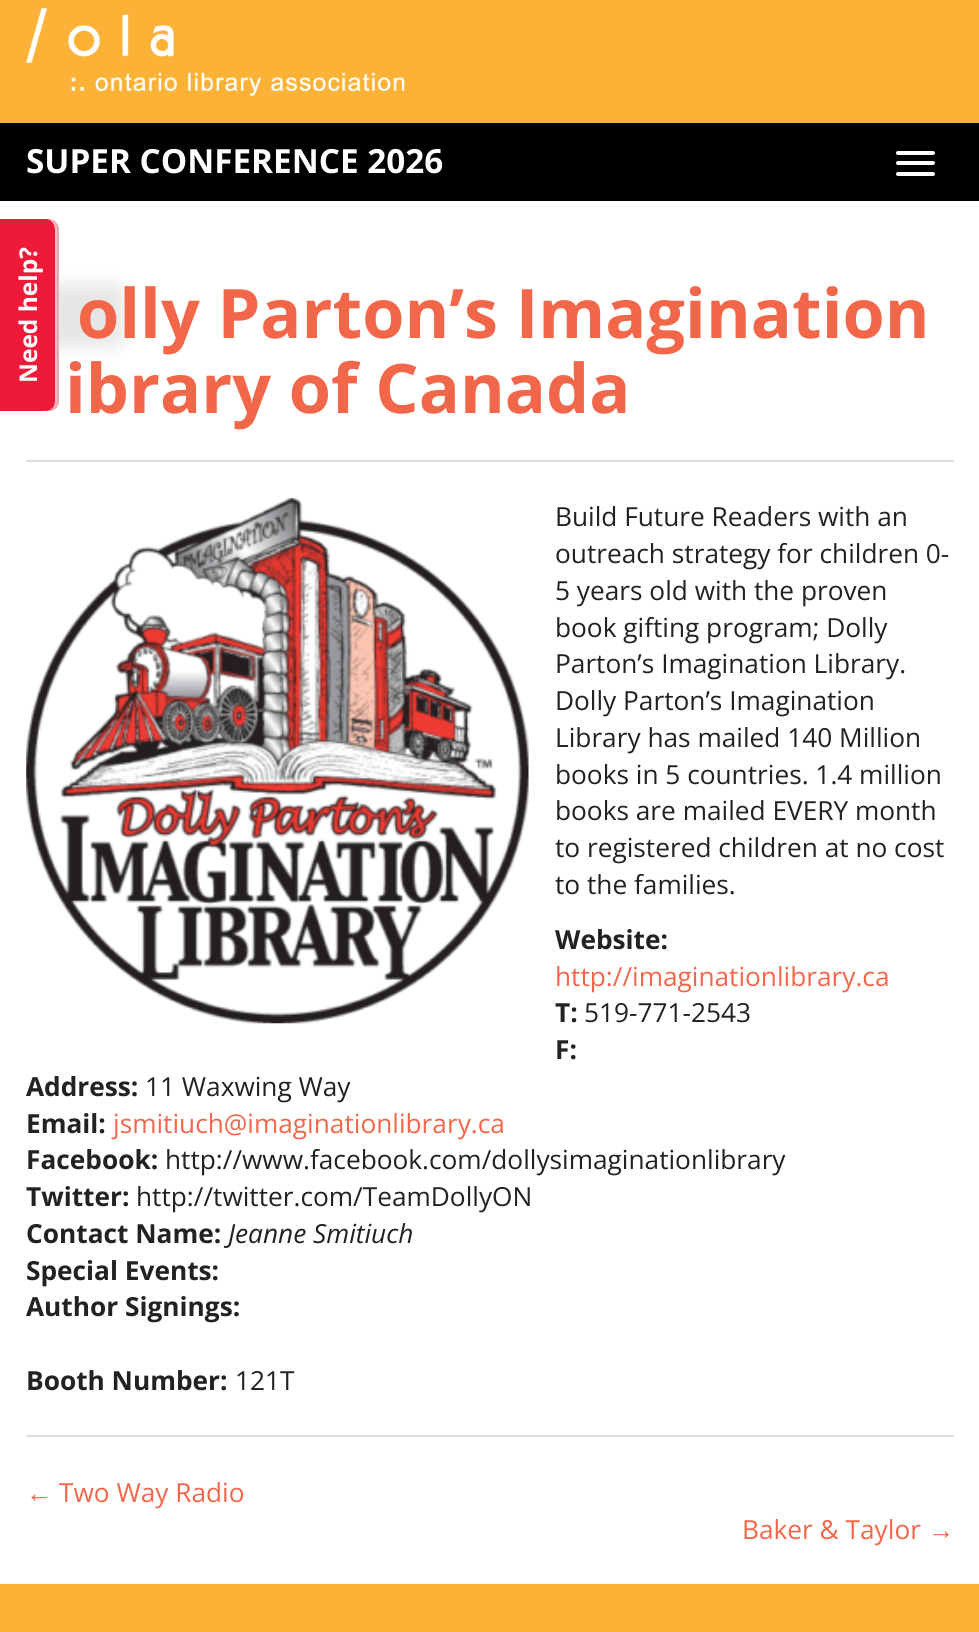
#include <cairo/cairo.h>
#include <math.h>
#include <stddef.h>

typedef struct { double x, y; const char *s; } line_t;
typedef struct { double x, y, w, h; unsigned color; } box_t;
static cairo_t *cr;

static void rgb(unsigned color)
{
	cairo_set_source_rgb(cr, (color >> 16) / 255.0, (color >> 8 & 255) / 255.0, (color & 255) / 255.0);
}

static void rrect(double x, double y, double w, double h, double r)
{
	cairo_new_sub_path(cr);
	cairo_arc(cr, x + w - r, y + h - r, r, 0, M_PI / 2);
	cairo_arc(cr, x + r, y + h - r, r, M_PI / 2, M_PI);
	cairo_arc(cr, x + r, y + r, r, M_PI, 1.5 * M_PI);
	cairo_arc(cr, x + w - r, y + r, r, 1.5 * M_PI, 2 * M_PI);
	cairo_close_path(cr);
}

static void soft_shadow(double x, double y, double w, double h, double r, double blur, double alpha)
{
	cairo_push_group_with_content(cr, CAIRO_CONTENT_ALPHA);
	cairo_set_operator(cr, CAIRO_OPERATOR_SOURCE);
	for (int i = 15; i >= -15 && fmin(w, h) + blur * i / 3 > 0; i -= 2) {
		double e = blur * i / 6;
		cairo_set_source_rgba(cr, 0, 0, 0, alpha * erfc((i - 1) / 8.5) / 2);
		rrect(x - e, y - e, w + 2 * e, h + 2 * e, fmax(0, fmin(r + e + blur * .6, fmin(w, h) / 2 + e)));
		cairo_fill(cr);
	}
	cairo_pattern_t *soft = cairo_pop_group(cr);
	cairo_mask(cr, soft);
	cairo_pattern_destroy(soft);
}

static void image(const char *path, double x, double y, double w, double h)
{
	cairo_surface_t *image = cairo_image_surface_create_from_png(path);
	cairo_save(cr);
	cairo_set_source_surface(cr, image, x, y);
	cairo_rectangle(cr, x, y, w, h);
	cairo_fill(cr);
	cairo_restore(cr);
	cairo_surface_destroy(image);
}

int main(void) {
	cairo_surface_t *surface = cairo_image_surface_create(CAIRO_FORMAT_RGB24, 979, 1632);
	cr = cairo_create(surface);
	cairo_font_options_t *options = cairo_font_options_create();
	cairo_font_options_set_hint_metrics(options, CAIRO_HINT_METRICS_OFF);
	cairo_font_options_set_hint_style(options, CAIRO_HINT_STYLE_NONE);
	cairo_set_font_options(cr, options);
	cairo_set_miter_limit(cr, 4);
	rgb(0xffffff);
	cairo_paint(cr);
	rgb(0xfcb237);
	cairo_rectangle(cr, 0, 0, 979, 123);
	cairo_fill(cr);
	image("img/1.png", 26, 8, 379, 88);
	rgb(0x000000);
	cairo_rectangle(cr, 0, 123, 979, 78);
	cairo_fill(cr);
	rgb(0xffffff);
	rrect(896, 151, 39, 4, 2);
	cairo_fill(cr);
	rrect(896, 161, 39, 4, 2);
	cairo_fill(cr);
	rrect(896, 172, 39, 4, 2);
	cairo_fill(cr);
	rgb(0x000000);
	soft_shadow(-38, 284, 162, 63, 11, 9, 0.1);
	rgb(0xed1a39);
	cairo_new_path(cr);
	cairo_move_to(cr, -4, 411);
	cairo_line_to(cr, -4, 219);
	cairo_line_to(cr, 48, 219);
	cairo_curve_to(cr, 54, 219, 59, 224, 59, 230);
	cairo_line_to(cr, 59, 401);
	cairo_curve_to(cr, 59, 407, 54, 411, 48, 411);
	cairo_close_path(cr);
	cairo_fill(cr);
	cairo_set_source_rgba(cr, 1, 1, 1, 0.7);
	cairo_new_path(cr);
	cairo_move_to(cr, -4, 411);
	cairo_line_to(cr, 48, 411);
	cairo_curve_to(cr, 54, 411, 59, 407, 59, 401);
	cairo_line_to(cr, 59, 230);
	cairo_curve_to(cr, 59, 224, 54, 219, 48, 219);
	cairo_line_to(cr, 47, 219);
	cairo_curve_to(cr, 52, 220, 55, 225, 55, 230);
	cairo_line_to(cr, 55, 401);
	cairo_curve_to(cr, 55, 407, 51, 411, 45, 411);
	cairo_close_path(cr);
	cairo_fill(cr);
	cairo_set_source_rgba(cr, 0, 0, 0, 0.08);
	cairo_new_path(cr);
	cairo_move_to(cr, -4, 411);
	cairo_line_to(cr, 48, 411);
	cairo_curve_to(cr, 54, 411, 59, 407, 59, 401);
	cairo_line_to(cr, 59, 230);
	cairo_curve_to(cr, 59, 224, 54, 220, 49, 219);
	cairo_curve_to(cr, 53, 220, 57, 225, 57, 230);
	cairo_line_to(cr, 57, 401);
	cairo_curve_to(cr, 57, 407, 52, 411, 47, 411);
	cairo_close_path(cr);
	cairo_fill(cr);
	rgb(0xdddddd);
	cairo_rectangle(cr, 26, 460, 928, 2);
	cairo_fill(cr);
	image("img/2.png", 26, 498, 503, 526);
	{
		static const box_t items[] = {
			{26, 1435, 928, 2, 0xdddddd},
			{0, 1582, 979, 2, 0xfafafa},
			{0, 1584, 979, 48, 0xfcb237},
		};
		for (size_t i = 0; i < sizeof items / sizeof *items; i++) {
			rgb(items[i].color);
			cairo_rectangle(cr, items[i].x, items[i].y, items[i].w, items[i].h);
			cairo_fill(cr);
		}
	}
	cairo_select_font_face(cr, "Open Sans", CAIRO_FONT_SLANT_NORMAL, CAIRO_FONT_WEIGHT_BOLD);
	cairo_set_font_size(cr, 33.25);
	rgb(0xffffff);
	cairo_move_to(cr, 26, 173);
	cairo_show_text(cr, "SUPER CONFERENCE 2026");
	cairo_set_font_size(cr, 24.5);
	cairo_save(cr);
	cairo_translate(cr, 37, 383);
	cairo_rotate(cr, -90 * M_PI / 180);
	cairo_move_to(cr, 0, 0);
	cairo_show_text(cr, "Need help?");
	cairo_restore(cr);
	cairo_set_font_size(cr, 68.25);
	rgb(0xf26649);
	cairo_move_to(cr, 77, 338);
	cairo_show_text(cr, "olly Parton’s Imagination");
	cairo_move_to(cr, 65, 413);
	cairo_show_text(cr, "ibrary of Canada");
	cairo_select_font_face(cr, "Open Sans", CAIRO_FONT_SLANT_NORMAL, CAIRO_FONT_WEIGHT_NORMAL);
	cairo_set_font_size(cr, 26.25);
	rgb(0x222222);
	{
		static const line_t items[] = {
			{555, 526, "Build Future Readers with an"},
			{555, 563, "outreach strategy for children 0-"},
			{555, 600, "5 years old with the proven"},
			{555, 637, "book gifting program; Dolly"},
			{555, 673, "Parton’s Imagination Library."},
			{555, 710, "Dolly Parton’s Imagination"},
			{555, 747, "Library has mailed 140 Million"},
			{555, 784, "books in 5 countries. 1.4 million"},
			{555, 820, "books are mailed EVERY month"},
			{555, 857, "to registered children at no cost"},
			{555, 894, "to the families."},
		};
		for (size_t i = 0; i < sizeof items / sizeof *items; i++) {
			cairo_move_to(cr, items[i].x, items[i].y);
			cairo_show_text(cr, items[i].s);
		}
	}
	cairo_select_font_face(cr, "Open Sans", CAIRO_FONT_SLANT_NORMAL, CAIRO_FONT_WEIGHT_BOLD);
	cairo_move_to(cr, 555, 949);
	cairo_show_text(cr, "Website:");
	cairo_select_font_face(cr, "Open Sans", CAIRO_FONT_SLANT_NORMAL, CAIRO_FONT_WEIGHT_NORMAL);
	rgb(0xf26649);
	cairo_move_to(cr, 555, 986);
	cairo_show_text(cr, "http://imaginationlibrary.ca");
	cairo_select_font_face(cr, "Open Sans", CAIRO_FONT_SLANT_NORMAL, CAIRO_FONT_WEIGHT_BOLD);
	rgb(0x222222);
	cairo_move_to(cr, 555, 1022);
	cairo_show_text(cr, "T:");
	cairo_select_font_face(cr, "Open Sans", CAIRO_FONT_SLANT_NORMAL, CAIRO_FONT_WEIGHT_NORMAL);
	cairo_move_to(cr, 584, 1022);
	cairo_show_text(cr, "519-771-2543");
	cairo_select_font_face(cr, "Open Sans", CAIRO_FONT_SLANT_NORMAL, CAIRO_FONT_WEIGHT_BOLD);
	cairo_move_to(cr, 555, 1059);
	cairo_show_text(cr, "F:");
	cairo_move_to(cr, 26, 1096);
	cairo_show_text(cr, "Address:");
	cairo_select_font_face(cr, "Open Sans", CAIRO_FONT_SLANT_NORMAL, CAIRO_FONT_WEIGHT_NORMAL);
	cairo_move_to(cr, 145, 1096);
	cairo_show_text(cr, "11 Waxwing Way");
	cairo_select_font_face(cr, "Open Sans", CAIRO_FONT_SLANT_NORMAL, CAIRO_FONT_WEIGHT_BOLD);
	cairo_move_to(cr, 26, 1133);
	cairo_show_text(cr, "Email:");
	cairo_select_font_face(cr, "Open Sans", CAIRO_FONT_SLANT_NORMAL, CAIRO_FONT_WEIGHT_NORMAL);
	rgb(0xf26649);
	cairo_move_to(cr, 113, 1133);
	cairo_show_text(cr, "jsmitiuch@imaginationlibrary.ca");
	cairo_select_font_face(cr, "Open Sans", CAIRO_FONT_SLANT_NORMAL, CAIRO_FONT_WEIGHT_BOLD);
	rgb(0x222222);
	cairo_move_to(cr, 26, 1169);
	cairo_show_text(cr, "Facebook:");
	cairo_select_font_face(cr, "Open Sans", CAIRO_FONT_SLANT_NORMAL, CAIRO_FONT_WEIGHT_NORMAL);
	cairo_move_to(cr, 165, 1169);
	cairo_show_text(cr, "http://www.facebook.com/dollysimaginationlibrary");
	cairo_select_font_face(cr, "Open Sans", CAIRO_FONT_SLANT_NORMAL, CAIRO_FONT_WEIGHT_BOLD);
	cairo_move_to(cr, 26, 1206);
	cairo_show_text(cr, "Twitter:");
	cairo_select_font_face(cr, "Open Sans", CAIRO_FONT_SLANT_NORMAL, CAIRO_FONT_WEIGHT_NORMAL);
	cairo_move_to(cr, 136, 1206);
	cairo_show_text(cr, "http://twitter.com/TeamDollyON");
	cairo_select_font_face(cr, "Open Sans", CAIRO_FONT_SLANT_NORMAL, CAIRO_FONT_WEIGHT_BOLD);
	cairo_move_to(cr, 26, 1243);
	cairo_show_text(cr, "Contact Name:");
	cairo_select_font_face(cr, "Open Sans", CAIRO_FONT_SLANT_ITALIC, CAIRO_FONT_WEIGHT_NORMAL);
	cairo_move_to(cr, 228, 1243);
	cairo_show_text(cr, "Jeanne Smitiuch");
	cairo_select_font_face(cr, "Open Sans", CAIRO_FONT_SLANT_NORMAL, CAIRO_FONT_WEIGHT_BOLD);
	{
		static const line_t items[] = {
			{26, 1280, "Special Events:"},
			{26, 1316, "Author Signings:"},
			{26, 1390, "Booth Number:"},
		};
		for (size_t i = 0; i < sizeof items / sizeof *items; i++) {
			cairo_move_to(cr, items[i].x, items[i].y);
			cairo_show_text(cr, items[i].s);
		}
	}
	cairo_select_font_face(cr, "Open Sans", CAIRO_FONT_SLANT_NORMAL, CAIRO_FONT_WEIGHT_NORMAL);
	cairo_move_to(cr, 235, 1390);
	cairo_show_text(cr, "121T");
	cairo_select_font_face(cr, "Liberation Sans", CAIRO_FONT_SLANT_NORMAL, CAIRO_FONT_WEIGHT_NORMAL);
	rgb(0xf26649);
	cairo_move_to(cr, 26, 1502);
	cairo_show_text(cr, "←");
	cairo_select_font_face(cr, "Open Sans", CAIRO_FONT_SLANT_NORMAL, CAIRO_FONT_WEIGHT_NORMAL);
	cairo_move_to(cr, 59, 1502);
	cairo_show_text(cr, "Two Way Radio");
	cairo_move_to(cr, 742, 1539);
	cairo_show_text(cr, "Baker & Taylor");
	cairo_select_font_face(cr, "Liberation Sans", CAIRO_FONT_SLANT_NORMAL, CAIRO_FONT_WEIGHT_NORMAL);
	cairo_move_to(cr, 928, 1539);
	cairo_show_text(cr, "→");
	cairo_surface_write_to_png(surface, "page.png");
	cairo_font_options_destroy(options);
	cairo_destroy(cr);
	cairo_surface_destroy(surface);
	return 0;
}
